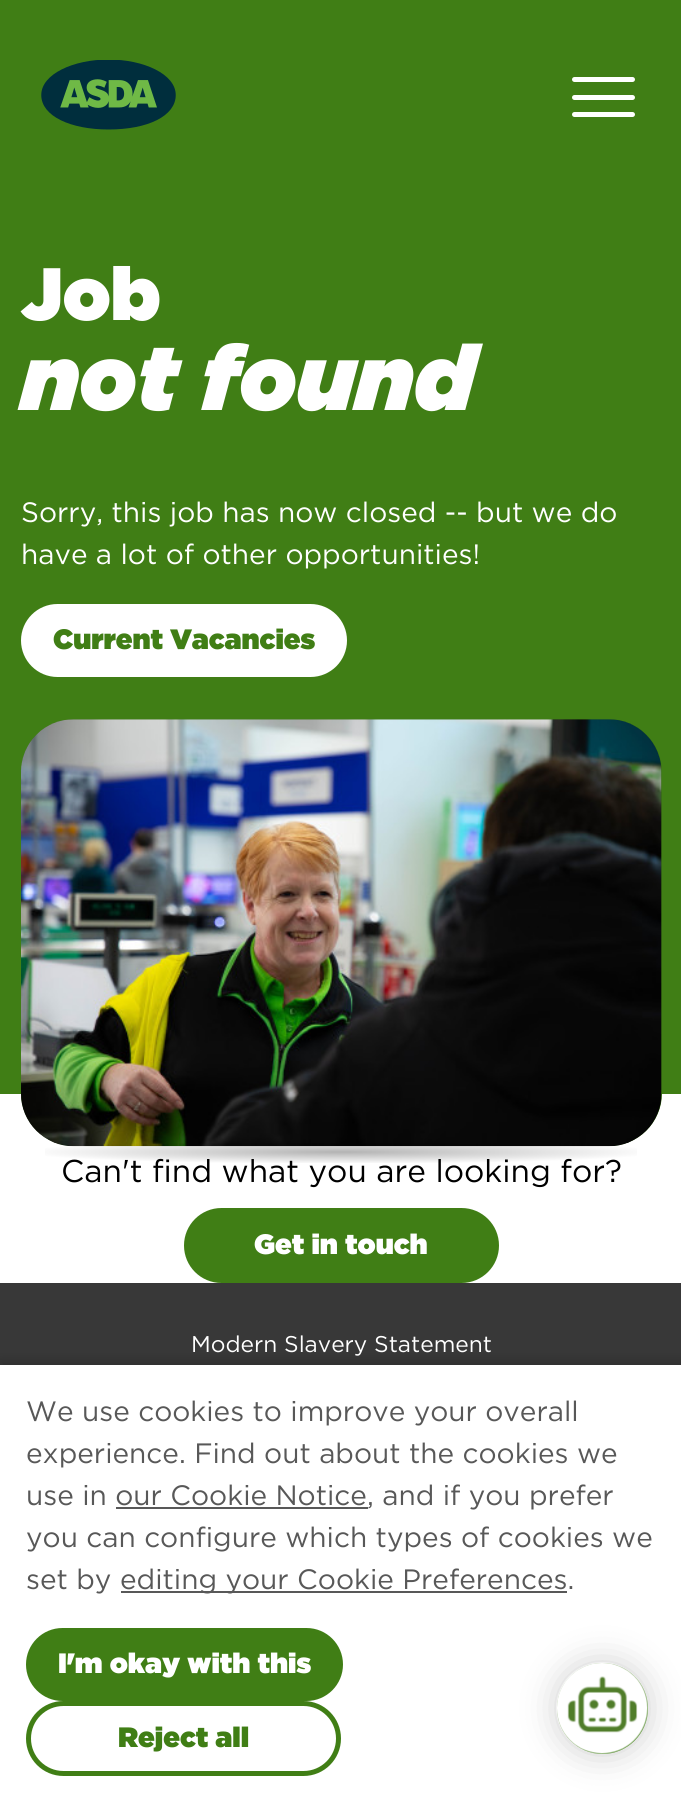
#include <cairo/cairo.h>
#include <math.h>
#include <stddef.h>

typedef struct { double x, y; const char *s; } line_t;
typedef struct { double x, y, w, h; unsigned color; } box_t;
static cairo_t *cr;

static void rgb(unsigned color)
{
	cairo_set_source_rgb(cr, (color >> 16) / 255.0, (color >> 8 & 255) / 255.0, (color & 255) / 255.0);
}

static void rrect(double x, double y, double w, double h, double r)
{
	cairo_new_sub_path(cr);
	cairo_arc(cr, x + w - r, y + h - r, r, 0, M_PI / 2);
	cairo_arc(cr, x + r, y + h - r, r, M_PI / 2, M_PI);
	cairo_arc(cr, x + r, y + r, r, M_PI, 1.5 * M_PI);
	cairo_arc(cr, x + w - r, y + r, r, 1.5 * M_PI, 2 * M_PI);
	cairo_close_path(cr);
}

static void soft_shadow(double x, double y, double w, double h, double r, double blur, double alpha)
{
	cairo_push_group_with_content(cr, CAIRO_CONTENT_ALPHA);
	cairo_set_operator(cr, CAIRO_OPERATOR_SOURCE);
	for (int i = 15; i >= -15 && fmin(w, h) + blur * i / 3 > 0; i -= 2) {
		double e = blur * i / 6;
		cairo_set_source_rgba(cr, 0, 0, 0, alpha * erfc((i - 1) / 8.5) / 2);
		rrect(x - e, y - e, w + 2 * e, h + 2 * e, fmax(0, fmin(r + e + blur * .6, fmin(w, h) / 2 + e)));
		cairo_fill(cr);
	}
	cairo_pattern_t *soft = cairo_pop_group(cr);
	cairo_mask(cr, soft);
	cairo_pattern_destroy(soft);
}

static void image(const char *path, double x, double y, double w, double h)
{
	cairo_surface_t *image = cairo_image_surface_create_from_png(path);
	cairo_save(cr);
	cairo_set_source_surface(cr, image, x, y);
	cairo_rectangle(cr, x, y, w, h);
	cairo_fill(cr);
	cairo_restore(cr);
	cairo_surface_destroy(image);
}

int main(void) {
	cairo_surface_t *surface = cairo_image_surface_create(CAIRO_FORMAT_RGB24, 681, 1802);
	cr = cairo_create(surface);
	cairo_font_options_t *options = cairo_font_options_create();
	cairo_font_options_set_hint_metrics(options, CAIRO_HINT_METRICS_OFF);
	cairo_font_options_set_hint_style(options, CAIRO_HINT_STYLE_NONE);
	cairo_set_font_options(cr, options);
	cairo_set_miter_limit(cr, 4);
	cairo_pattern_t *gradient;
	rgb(0xffffff);
	cairo_paint(cr);
	rgb(0x407e15);
	cairo_rectangle(cr, 0, 0, 681, 1094);
	cairo_fill(cr);
	image("img/1.png", 41, 60, 135, 70);
	rgb(0xffffff);
	rrect(572, 95, 63, 5, 2.5);
	cairo_fill(cr);
	rrect(572, 77, 63, 5, 2.5);
	cairo_fill(cr);
	rrect(572, 112, 63, 5, 2.5);
	cairo_fill(cr);
	rrect(23.5, 606.5, 321, 68, 34);
	cairo_fill_preserve(cr);
	cairo_set_line_width(cr, 5);
	cairo_stroke(cr);
	rgb(0x3a7113);
	rrect(21, 719, 641, 427, 53);
	cairo_fill(cr);
	image("img/2.png", 21, 719, 641, 428);
	rgb(0x407e15);
	rrect(186.5, 1210.5, 310, 70, 35);
	cairo_fill_preserve(cr);
	cairo_stroke(cr);
	rgb(0x383838);
	cairo_rectangle(cr, 0, 1283, 681, 82);
	cairo_fill(cr);
	rgb(0x000000);
	soft_shadow(0, 1360, 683, 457, 0, 5, 0.16);
	{
		static const box_t items[] = {
			{0, 1365, 681, 437, 0xffffff},
			{116, 1507, 252, 2, 0x585858},
			{121, 1591, 446, 2, 0x585858},
		};
		for (size_t i = 0; i < sizeof items / sizeof *items; i++) {
			rgb(items[i].color);
			cairo_rectangle(cr, items[i].x, items[i].y, items[i].w, items[i].h);
			cairo_fill(cr);
		}
	}
	rgb(0x407e15);
	rrect(28.5, 1630.5, 312, 68, 34);
	cairo_fill_preserve(cr);
	cairo_stroke(cr);
	rrect(28.5, 1703.5, 310, 70, 35);
	cairo_stroke(cr);
	rgb(0x000000);
	soft_shadow(557, 1663, 91, 91, 45.5, 17.5, 0.2);
	rgb(0x407e15);
	cairo_arc(cr, 602.5, 1708.5, 45.5, 0, 2 * M_PI);
	cairo_fill(cr);
	image("img/3.png", 556, 1662, 92, 92);
	cairo_select_font_face(cr, "Gotham Black", CAIRO_FONT_SLANT_NORMAL, CAIRO_FONT_WEIGHT_NORMAL);
	cairo_set_font_size(cr, 74);
	rgb(0xffffff);
	cairo_move_to(cr, 21, 320);
	cairo_show_text(cr, "Job");
	cairo_select_font_face(cr, "Gotham Black", CAIRO_FONT_SLANT_ITALIC, CAIRO_FONT_WEIGHT_NORMAL);
	cairo_set_font_size(cr, 91);
	cairo_move_to(cr, 21, 410);
	cairo_show_text(cr, "not found");
	cairo_select_font_face(cr, "Gotham", CAIRO_FONT_SLANT_NORMAL, CAIRO_FONT_WEIGHT_NORMAL);
	cairo_set_font_size(cr, 28);
	cairo_move_to(cr, 21, 522);
	cairo_show_text(cr, "Sorry, this job has now closed -- but we do");
	cairo_move_to(cr, 21, 564);
	cairo_show_text(cr, "have a lot of other opportunities!");
	cairo_select_font_face(cr, "Gotham Black", CAIRO_FONT_SLANT_NORMAL, CAIRO_FONT_WEIGHT_NORMAL);
	rgb(0x407e15);
	cairo_move_to(cr, 53, 649);
	cairo_show_text(cr, "Current Vacancies");
	cairo_select_font_face(cr, "Gotham", CAIRO_FONT_SLANT_NORMAL, CAIRO_FONT_WEIGHT_NORMAL);
	cairo_set_font_size(cr, 31.5);
	rgb(0x000000);
	cairo_move_to(cr, 61, 1182);
	cairo_show_text(cr, "Can't find what you are looking for?");
	gradient = cairo_pattern_create_radial(0, 0, 0, 0, 0, 1);
	cairo_pattern_set_matrix(gradient, &(cairo_matrix_t){1.0 / 320, 0, 0, 1.0 / 12, -1.0 * 341 / 320, -1.0 * 1152 / 12});
	cairo_pattern_add_color_stop_rgba(gradient, 0, 0, 0, 0, 0.3);
	cairo_pattern_add_color_stop_rgba(gradient, 1, 0, 0, 0, 0);
	cairo_set_source(cr, gradient);
	cairo_pattern_destroy(gradient);
	cairo_rectangle(cr, 45, 1143, 592, 20);
	cairo_fill(cr);
	cairo_select_font_face(cr, "Gotham Black", CAIRO_FONT_SLANT_NORMAL, CAIRO_FONT_WEIGHT_NORMAL);
	cairo_set_font_size(cr, 28);
	rgb(0xffffff);
	cairo_move_to(cr, 254, 1254);
	cairo_show_text(cr, "Get in touch");
	cairo_select_font_face(cr, "Gotham", CAIRO_FONT_SLANT_NORMAL, CAIRO_FONT_WEIGHT_NORMAL);
	cairo_set_font_size(cr, 22.75);
	cairo_move_to(cr, 191, 1352);
	cairo_show_text(cr, "Modern Slavery Statement");
	cairo_set_font_size(cr, 28);
	rgb(0x585858);
	{
		static const line_t items[] = {
			{26, 1421, "We use cookies to improve your overall"},
			{26, 1463, "experience. Find out about the cookies we"},
			{26, 1505, "use in our Cookie Notice, and if you prefer"},
			{26, 1547, "you can configure which types of cookies we"},
			{26, 1589, "set by"},
			{120, 1589, "editing your Cookie Preferences."},
		};
		for (size_t i = 0; i < sizeof items / sizeof *items; i++) {
			cairo_move_to(cr, items[i].x, items[i].y);
			cairo_show_text(cr, items[i].s);
		}
	}
	cairo_select_font_face(cr, "Gotham Black", CAIRO_FONT_SLANT_NORMAL, CAIRO_FONT_WEIGHT_NORMAL);
	rgb(0xffffff);
	cairo_move_to(cr, 58, 1673);
	cairo_show_text(cr, "I'm okay with this");
	rgb(0x407e15);
	cairo_move_to(cr, 118, 1747);
	cairo_show_text(cr, "Reject all");
	cairo_surface_write_to_png(surface, "page.png");
	cairo_font_options_destroy(options);
	cairo_destroy(cr);
	cairo_surface_destroy(surface);
	return 0;
}
